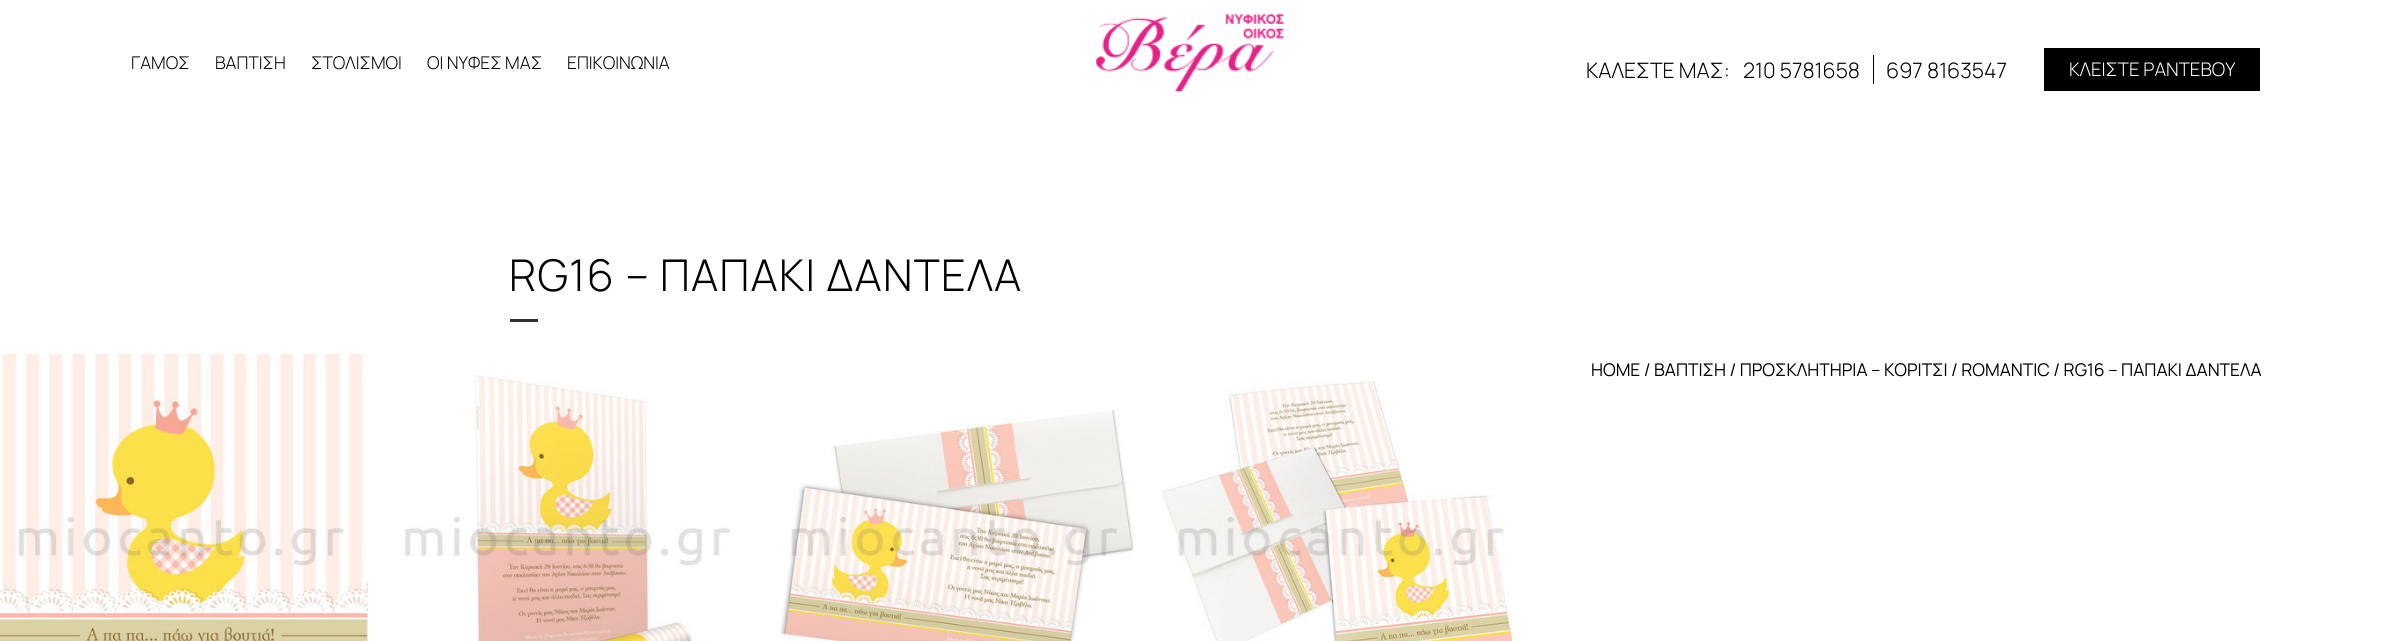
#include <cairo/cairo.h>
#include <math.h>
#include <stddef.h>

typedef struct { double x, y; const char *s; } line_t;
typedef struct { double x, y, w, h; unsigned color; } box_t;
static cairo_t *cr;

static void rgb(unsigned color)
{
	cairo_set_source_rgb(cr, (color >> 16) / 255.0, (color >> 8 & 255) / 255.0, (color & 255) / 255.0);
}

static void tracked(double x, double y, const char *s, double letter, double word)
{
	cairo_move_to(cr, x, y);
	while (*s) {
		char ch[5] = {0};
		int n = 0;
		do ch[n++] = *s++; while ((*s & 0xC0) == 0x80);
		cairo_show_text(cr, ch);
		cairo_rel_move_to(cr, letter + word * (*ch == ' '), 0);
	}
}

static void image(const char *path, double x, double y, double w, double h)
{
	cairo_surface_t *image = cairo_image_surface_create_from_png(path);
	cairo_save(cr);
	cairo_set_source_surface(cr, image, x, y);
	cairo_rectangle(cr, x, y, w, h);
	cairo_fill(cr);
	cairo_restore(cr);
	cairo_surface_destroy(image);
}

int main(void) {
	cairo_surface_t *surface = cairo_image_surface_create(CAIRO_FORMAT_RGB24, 2393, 641);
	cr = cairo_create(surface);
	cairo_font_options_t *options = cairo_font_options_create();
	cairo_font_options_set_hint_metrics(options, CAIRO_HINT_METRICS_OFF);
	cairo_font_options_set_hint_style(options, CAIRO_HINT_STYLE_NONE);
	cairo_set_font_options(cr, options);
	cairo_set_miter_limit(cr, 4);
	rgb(0xffffff);
	cairo_paint(cr);
	image("img/1.png", 1096, 13, 188, 79);
	{
		static const box_t items[] = {
			{1873, 55, 1, 29, 0x000000},
			{2044, 48, 216, 43, 0x000000},
			{510, 319, 28, 3, 0x303030},
		};
		for (size_t i = 0; i < sizeof items / sizeof *items; i++) {
			rgb(items[i].color);
			cairo_rectangle(cr, items[i].x, items[i].y, items[i].w, items[i].h);
			cairo_fill(cr);
		}
	}
	image("img/2.png", 0, 353, 368, 288);
	image("img/3.png", 404, 375, 326, 266);
	image("img/4.png", 780, 410, 354, 231);
	image("img/5.png", 1162, 381, 355, 260);
	cairo_select_font_face(cr, "Manrope Light", CAIRO_FONT_SLANT_NORMAL, CAIRO_FONT_WEIGHT_NORMAL);
	cairo_set_font_size(cr, 17.5);
	rgb(0x000000);
	{
		static const line_t items[] = {
			{131, 69, "ΓΑΜΟΣ"},
			{215, 69, "ΒΑΠΤΙΣΗ"},
			{311, 69, "ΣΤΟΛΙΣΜΟΙ"},
			{427, 69, "ΟΙ ΝΥΦΕΣ ΜΑΣ"},
			{567, 69, "ΕΠΙΚΟΙΝΩΝΙΑ"},
		};
		for (size_t i = 0; i < sizeof items / sizeof *items; i++) {
			cairo_move_to(cr, items[i].x, items[i].y);
			cairo_show_text(cr, items[i].s);
		}
	}
	cairo_set_font_size(cr, 21.25);
	{
		static const line_t items[] = {
			{1586, 78, "ΚΑΛΕΣΤΕ ΜΑΣ:"},
			{1743, 78, "210 5781658"},
			{1886, 78, "697 8163547"},
		};
		for (size_t i = 0; i < sizeof items / sizeof *items; i++) {
			cairo_move_to(cr, items[i].x, items[i].y);
			cairo_show_text(cr, items[i].s);
		}
	}
	cairo_set_font_size(cr, 18.75);
	rgb(0xffffff);
	cairo_move_to(cr, 2069, 76);
	cairo_show_text(cr, "ΚΛΕΙΣΤΕ ΡΑΝΤΕΒΟΥ");
	cairo_set_font_size(cr, 43.75);
	rgb(0x000000);
	tracked(509, 291, "RG16 – ΠΑΠΑΚΙ ΔΑΝΤΕΛΑ", 1.25, 0);
	cairo_select_font_face(cr, "Manrope", CAIRO_FONT_SLANT_NORMAL, CAIRO_FONT_WEIGHT_NORMAL);
	cairo_set_font_size(cr, 17.5);
	cairo_move_to(cr, 1591, 376);
	cairo_show_text(cr, "HOME / ΒΑΠΤΙΣΗ / ΠΡΟΣΚΛΗΤΗΡΙΑ – ΚΟΡΙΤΣΙ / ROMANTIC / RG16 – ΠΑΠΑΚΙ ΔΑΝΤΕΛΑ");
	cairo_surface_write_to_png(surface, "page.png");
	cairo_font_options_destroy(options);
	cairo_destroy(cr);
	cairo_surface_destroy(surface);
	return 0;
}
